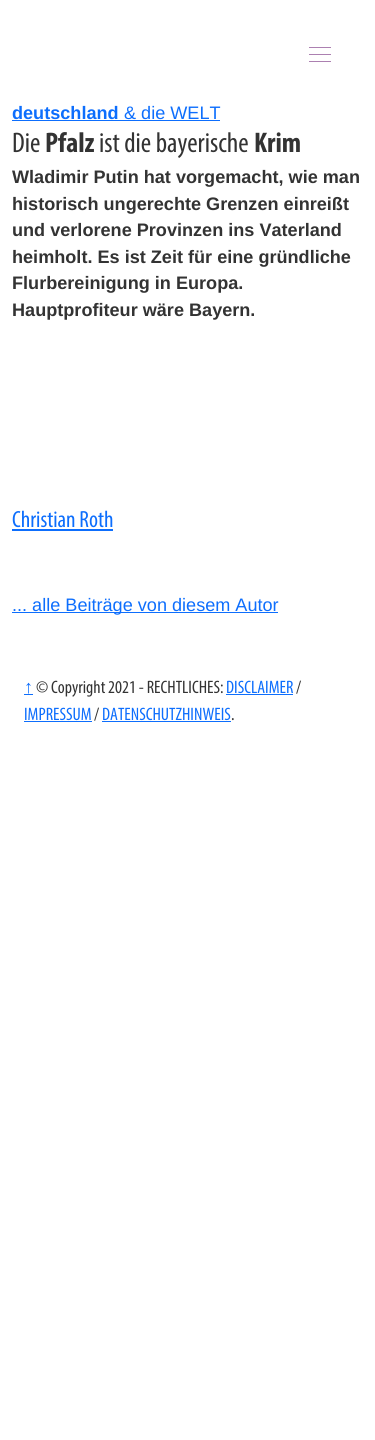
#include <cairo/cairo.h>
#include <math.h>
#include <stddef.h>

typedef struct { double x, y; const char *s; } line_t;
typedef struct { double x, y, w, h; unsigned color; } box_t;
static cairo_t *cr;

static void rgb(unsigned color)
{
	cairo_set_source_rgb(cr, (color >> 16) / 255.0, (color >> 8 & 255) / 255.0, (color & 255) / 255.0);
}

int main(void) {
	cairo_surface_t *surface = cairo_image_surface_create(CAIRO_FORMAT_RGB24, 375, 1440);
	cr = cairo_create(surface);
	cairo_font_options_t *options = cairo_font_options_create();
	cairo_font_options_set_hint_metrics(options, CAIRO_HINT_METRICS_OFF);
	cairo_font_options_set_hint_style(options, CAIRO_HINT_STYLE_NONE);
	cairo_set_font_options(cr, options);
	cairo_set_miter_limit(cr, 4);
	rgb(0xffffff);
	cairo_paint(cr);
	{
		static const box_t items[] = {
			{309, 47, 22, 1, 0xac80b1},
			{309, 54, 22, 1, 0xac80b1},
			{309, 61, 22, 1, 0xac80b1},
			{12, 120, 208, 1, 0x0d6efd},
			{12, 529, 101, 2, 0x0d6efd},
			{12, 612, 266, 1, 0x0d6efd},
			{24, 694, 9, 1, 0x0d6efd},
			{226, 694, 67, 1, 0x0d6efd},
			{24, 721, 68, 1, 0x0d6efd},
			{102, 721, 129, 1, 0x0d6efd},
		};
		for (size_t i = 0; i < sizeof items / sizeof *items; i++) {
			rgb(items[i].color);
			cairo_rectangle(cr, items[i].x, items[i].y, items[i].w, items[i].h);
			cairo_fill(cr);
		}
	}
	cairo_select_font_face(cr, "Liberation Sans", CAIRO_FONT_SLANT_NORMAL, CAIRO_FONT_WEIGHT_BOLD);
	cairo_set_font_size(cr, 18.1);
	cairo_move_to(cr, 12, 119);
	cairo_show_text(cr, "deutschland");
	cairo_select_font_face(cr, "Liberation Sans", CAIRO_FONT_SLANT_NORMAL, CAIRO_FONT_WEIGHT_NORMAL);
	cairo_move_to(cr, 124, 119);
	cairo_show_text(cr, "& die WELT");
	cairo_select_font_face(cr, "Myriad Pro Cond", CAIRO_FONT_SLANT_NORMAL, CAIRO_FONT_WEIGHT_NORMAL);
	cairo_set_font_size(cr, 28.5);
	rgb(0x333333);
	cairo_move_to(cr, 12, 152);
	cairo_show_text(cr, "Die");
	cairo_select_font_face(cr, "Myriad Pro Cond", CAIRO_FONT_SLANT_NORMAL, CAIRO_FONT_WEIGHT_BOLD);
	cairo_move_to(cr, 45, 152);
	cairo_show_text(cr, "Pfalz");
	cairo_select_font_face(cr, "Myriad Pro Cond", CAIRO_FONT_SLANT_NORMAL, CAIRO_FONT_WEIGHT_NORMAL);
	cairo_move_to(cr, 99, 152);
	cairo_show_text(cr, "ist die bayerische");
	cairo_select_font_face(cr, "Myriad Pro Cond", CAIRO_FONT_SLANT_NORMAL, CAIRO_FONT_WEIGHT_BOLD);
	cairo_move_to(cr, 254, 152);
	cairo_show_text(cr, "Krim");
	cairo_select_font_face(cr, "Liberation Sans", CAIRO_FONT_SLANT_NORMAL, CAIRO_FONT_WEIGHT_BOLD);
	cairo_set_font_size(cr, 18.1);
	{
		static const line_t items[] = {
			{12, 183, "Wladimir Putin hat vorgemacht, wie man"},
			{12, 210, "historisch ungerechte Grenzen einreißt"},
			{12, 236, "und verlorene Provinzen ins Vaterland"},
			{12, 263, "heimholt. Es ist Zeit für eine gründliche"},
			{12, 289, "Flurbereinigung in Europa."},
			{12, 316, "Hauptprofiteur wäre Bayern."},
		};
		for (size_t i = 0; i < sizeof items / sizeof *items; i++) {
			cairo_move_to(cr, items[i].x, items[i].y);
			cairo_show_text(cr, items[i].s);
		}
	}
	cairo_select_font_face(cr, "Myriad Pro Cond", CAIRO_FONT_SLANT_NORMAL, CAIRO_FONT_WEIGHT_NORMAL);
	cairo_set_font_size(cr, 23.5);
	rgb(0x0d6efd);
	cairo_move_to(cr, 12, 527);
	cairo_show_text(cr, "Christian Roth");
	cairo_select_font_face(cr, "Liberation Sans", CAIRO_FONT_SLANT_NORMAL, CAIRO_FONT_WEIGHT_NORMAL);
	cairo_set_font_size(cr, 18.1);
	cairo_move_to(cr, 12, 611);
	cairo_show_text(cr, "... alle Beiträge von diesem Autor");
	cairo_move_to(cr, 24, 693);
	cairo_show_text(cr, "↑");
	cairo_select_font_face(cr, "Myriad Pro Cond", CAIRO_FONT_SLANT_NORMAL, CAIRO_FONT_WEIGHT_NORMAL);
	rgb(0x333333);
	cairo_move_to(cr, 36, 693);
	cairo_show_text(cr, "© Copyright 2021 - RECHTLICHES:");
	rgb(0x0d6efd);
	cairo_move_to(cr, 226, 693);
	cairo_show_text(cr, "DISCLAIMER");
	rgb(0x333333);
	cairo_move_to(cr, 296, 693);
	cairo_show_text(cr, "/");
	rgb(0x0d6efd);
	cairo_move_to(cr, 24, 720);
	cairo_show_text(cr, "IMPRESSUM");
	rgb(0x333333);
	cairo_move_to(cr, 94, 720);
	cairo_show_text(cr, "/");
	rgb(0x0d6efd);
	cairo_move_to(cr, 102, 720);
	cairo_show_text(cr, "DATENSCHUTZHINWEIS");
	rgb(0x333333);
	cairo_move_to(cr, 231, 720);
	cairo_show_text(cr, ".");
	cairo_surface_write_to_png(surface, "page.png");
	cairo_font_options_destroy(options);
	cairo_destroy(cr);
	cairo_surface_destroy(surface);
	return 0;
}
